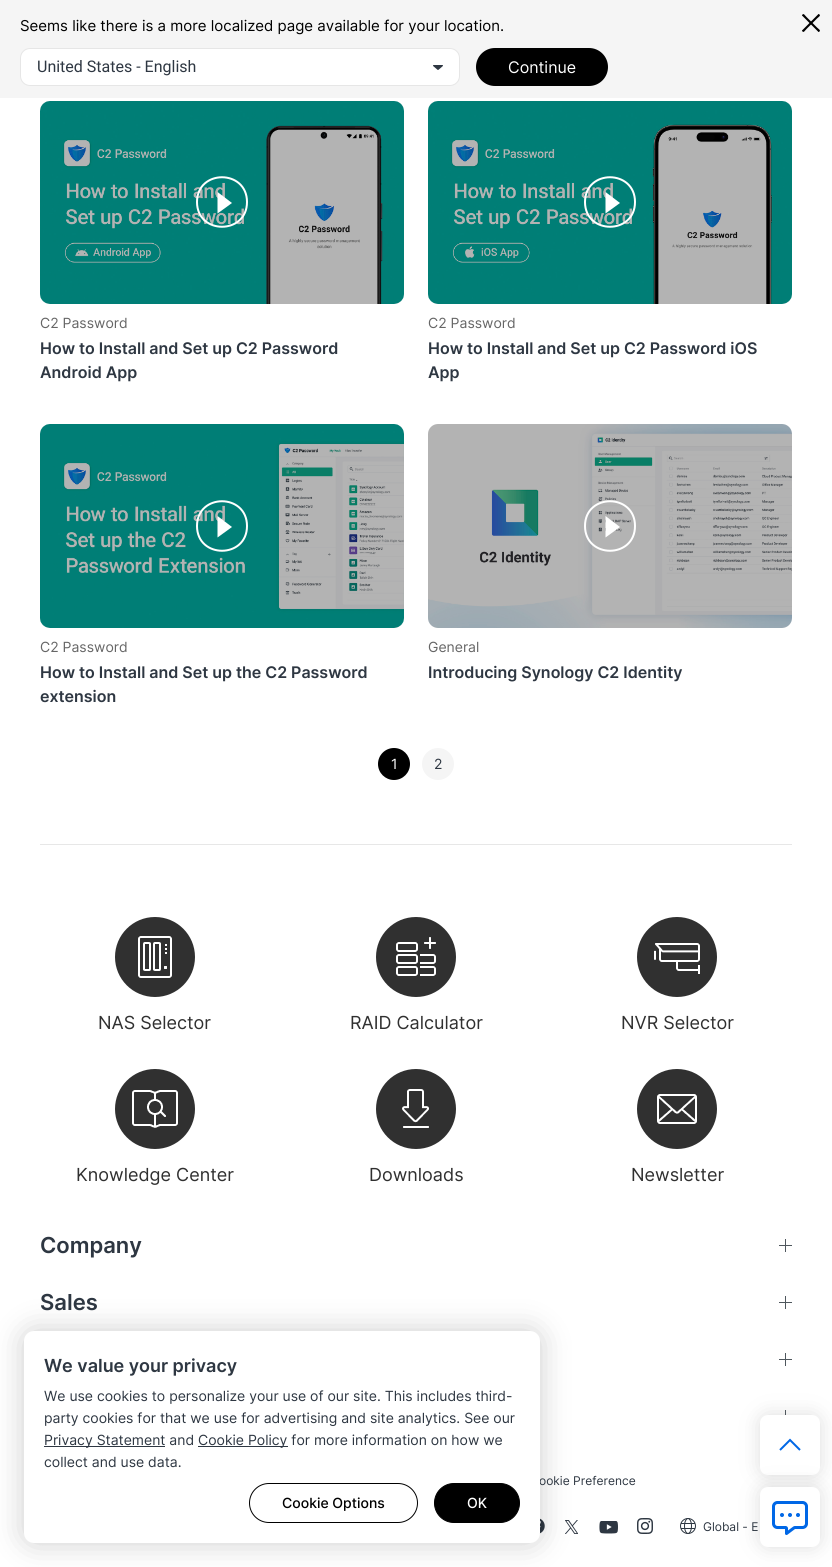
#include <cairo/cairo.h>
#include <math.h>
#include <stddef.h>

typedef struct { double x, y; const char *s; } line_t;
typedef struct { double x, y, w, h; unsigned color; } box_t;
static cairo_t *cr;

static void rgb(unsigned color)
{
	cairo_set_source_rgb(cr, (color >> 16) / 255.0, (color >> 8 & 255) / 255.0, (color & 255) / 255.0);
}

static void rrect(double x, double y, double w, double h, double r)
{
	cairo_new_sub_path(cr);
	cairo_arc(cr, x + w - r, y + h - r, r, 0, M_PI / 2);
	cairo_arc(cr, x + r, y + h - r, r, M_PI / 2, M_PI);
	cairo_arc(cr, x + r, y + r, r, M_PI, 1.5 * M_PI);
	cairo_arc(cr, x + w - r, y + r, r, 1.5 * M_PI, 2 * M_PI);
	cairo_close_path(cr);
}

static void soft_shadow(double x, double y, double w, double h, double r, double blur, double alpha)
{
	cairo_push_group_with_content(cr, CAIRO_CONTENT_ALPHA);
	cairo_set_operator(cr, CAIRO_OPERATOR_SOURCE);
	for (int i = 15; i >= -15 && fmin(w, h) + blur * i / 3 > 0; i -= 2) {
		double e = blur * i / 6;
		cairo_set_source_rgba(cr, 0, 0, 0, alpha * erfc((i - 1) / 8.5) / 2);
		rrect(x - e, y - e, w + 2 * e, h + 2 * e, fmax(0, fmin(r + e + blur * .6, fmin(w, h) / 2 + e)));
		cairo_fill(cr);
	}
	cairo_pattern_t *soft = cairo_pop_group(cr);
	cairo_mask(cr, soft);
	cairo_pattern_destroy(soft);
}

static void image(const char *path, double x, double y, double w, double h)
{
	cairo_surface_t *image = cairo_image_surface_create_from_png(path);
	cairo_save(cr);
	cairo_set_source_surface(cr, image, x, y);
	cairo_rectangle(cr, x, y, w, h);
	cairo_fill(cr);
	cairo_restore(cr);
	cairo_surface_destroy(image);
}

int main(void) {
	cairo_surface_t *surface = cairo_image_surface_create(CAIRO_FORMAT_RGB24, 832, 1567);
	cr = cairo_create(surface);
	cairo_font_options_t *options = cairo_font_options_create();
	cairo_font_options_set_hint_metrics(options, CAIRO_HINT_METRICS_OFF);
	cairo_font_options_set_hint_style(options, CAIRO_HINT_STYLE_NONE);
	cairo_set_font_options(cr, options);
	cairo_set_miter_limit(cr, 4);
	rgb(0xffffff);
	cairo_paint(cr);
	rgb(0xf5f5f5);
	cairo_rectangle(cr, 0, 0, 832, 98);
	cairo_fill(cr);
	rgb(0x000000);
	cairo_new_path(cr);
	cairo_move_to(cr, 819, 14);
	cairo_curve_to(cr, 821, 16, 819.5, 16, 817, 18.5);
	cairo_line_to(cr, 806.5, 29);
	cairo_curve_to(cr, 804, 31.5, 804, 33, 802, 31);
	cairo_line_to(cr, 802, 30.5);
	cairo_line_to(cr, 818.5, 14);
	cairo_close_path(cr);
	cairo_fill(cr);
	cairo_new_path(cr);
	cairo_move_to(cr, 802, 15);
	cairo_curve_to(cr, 804, 13, 804, 14.5, 806.5, 17);
	cairo_line_to(cr, 817, 27.5);
	cairo_curve_to(cr, 819.5, 30, 821, 30, 819, 32);
	cairo_line_to(cr, 818.5, 32);
	cairo_line_to(cr, 802, 15.5);
	cairo_close_path(cr);
	cairo_fill(cr);
	rgb(0xffffff);
	rrect(20.5, 48.5, 439, 37, 9.5);
	cairo_fill_preserve(cr);
	rgb(0xe6e6e6);
	cairo_set_line_width(cr, 1);
	cairo_stroke(cr);
	image("img/1.png", 433, 65, 10, 5);
	rgb(0x000000);
	rrect(476, 48, 132, 38, 19);
	cairo_fill(cr);
	image("img/2.png", 40, 101, 364, 203);
	cairo_set_source_rgba(cr, 0, 0, 0, 0.3);
	rrect(40, 101, 364, 203, 10);
	cairo_fill(cr);
	cairo_new_path(cr);
	cairo_move_to(cr, 247, 202);
	cairo_curve_to(cr, 247, 235, 197, 235, 197, 202);
	cairo_curve_to(cr, 197, 169, 247, 169, 247, 202);
	cairo_close_path(cr);
	rgb(0xffffff);
	cairo_set_line_width(cr, 2);
	cairo_stroke(cr);
	cairo_new_path(cr);
	cairo_move_to(cr, 232, 203);
	cairo_line_to(cr, 217.5, 213.5);
	cairo_line_to(cr, 217.5, 192);
	cairo_close_path(cr);
	cairo_fill(cr);
	image("img/3.png", 428, 101, 364, 203);
	cairo_set_source_rgba(cr, 0, 0, 0, 0.3);
	rrect(428, 101, 364, 203, 10);
	cairo_fill(cr);
	cairo_new_path(cr);
	cairo_move_to(cr, 635, 202);
	cairo_curve_to(cr, 635, 235, 585, 235, 585, 202);
	cairo_curve_to(cr, 585, 169, 635, 169, 635, 202);
	cairo_close_path(cr);
	rgb(0xffffff);
	cairo_stroke(cr);
	cairo_new_path(cr);
	cairo_move_to(cr, 620, 203);
	cairo_line_to(cr, 605.5, 213.5);
	cairo_line_to(cr, 605.5, 192);
	cairo_close_path(cr);
	cairo_fill(cr);
	image("img/4.png", 40, 424, 364, 204);
	cairo_set_source_rgba(cr, 0, 0, 0, 0.3);
	rrect(40, 424, 364, 204, 10);
	cairo_fill(cr);
	cairo_new_path(cr);
	cairo_move_to(cr, 247, 526);
	cairo_curve_to(cr, 247, 559, 197, 559, 197, 526);
	cairo_curve_to(cr, 197, 493, 247, 493, 247, 526);
	cairo_close_path(cr);
	rgb(0xffffff);
	cairo_stroke(cr);
	cairo_new_path(cr);
	cairo_move_to(cr, 232, 527);
	cairo_line_to(cr, 217.5, 537.5);
	cairo_line_to(cr, 217.5, 516);
	cairo_close_path(cr);
	cairo_fill(cr);
	image("img/5.png", 428, 424, 364, 204);
	cairo_set_source_rgba(cr, 0, 0, 0, 0.3);
	rrect(428, 424, 364, 204, 10);
	cairo_fill(cr);
	cairo_new_path(cr);
	cairo_move_to(cr, 635, 526);
	cairo_curve_to(cr, 635, 559, 585, 559, 585, 526);
	cairo_curve_to(cr, 585, 493, 635, 493, 635, 526);
	cairo_close_path(cr);
	rgb(0xffffff);
	cairo_stroke(cr);
	cairo_new_path(cr);
	cairo_move_to(cr, 620, 527);
	cairo_line_to(cr, 605.5, 537.5);
	cairo_line_to(cr, 605.5, 516);
	cairo_close_path(cr);
	cairo_fill(cr);
	rgb(0x000000);
	cairo_arc(cr, 394, 764, 16, 0, 2 * M_PI);
	cairo_fill(cr);
	rgb(0xf5f5f5);
	cairo_arc(cr, 438, 764, 16, 0, 2 * M_PI);
	cairo_fill(cr);
	rgb(0xe7e7e7);
	cairo_rectangle(cr, 40, 844, 752, 1);
	cairo_fill(cr);
	rgb(0x303030);
	cairo_arc(cr, 155, 957, 40, 0, 2 * M_PI);
	cairo_fill(cr);
	image("img/6.png", 138, 936, 34, 42);
	cairo_arc(cr, 416, 957, 40, 0, 2 * M_PI);
	cairo_fill(cr);
	image("img/7.png", 396, 937, 40, 39);
	cairo_arc(cr, 677, 957, 40, 0, 2 * M_PI);
	cairo_fill(cr);
	image("img/8.png", 654, 943, 46, 31);
	cairo_arc(cr, 155, 1109, 40, 0, 2 * M_PI);
	cairo_fill(cr);
	image("img/9.png", 132, 1090, 46, 38);
	cairo_arc(cr, 416, 1109, 40, 0, 2 * M_PI);
	cairo_fill(cr);
	image("img/10.png", 402, 1089, 27, 39);
	cairo_arc(cr, 677, 1109, 40, 0, 2 * M_PI);
	cairo_fill(cr);
	image("img/11.png", 657, 1094, 40, 30);
	{
		static const box_t items[] = {
			{785, 1239, 1, 13, 0x4f575d},
			{779, 1245, 13, 1, 0x4f575d},
			{785, 1296, 1, 13, 0x4f575d},
			{779, 1302, 13, 1, 0x4f575d},
			{785, 1353, 1, 13, 0x4f575d},
			{779, 1359, 13, 1, 0x4f575d},
			{785, 1410, 1, 13, 0x4f575d},
		};
		for (size_t i = 0; i < sizeof items / sizeof *items; i++) {
			rgb(items[i].color);
			cairo_rectangle(cr, items[i].x, items[i].y, items[i].w, items[i].h);
			cairo_fill(cr);
		}
	}
	image("img/12.png", 539, 1518, 6, 16);
	image("img/13.png", 565, 1520, 13, 14);
	image("img/14.png", 599, 1521, 19, 13);
	image("img/15.png", 637, 1518, 16, 16);
	image("img/16.png", 680, 1518, 16, 16);
	rgb(0x545454);
	soft_shadow(760, 1415, 60, 60, 8, 10, 0.2);
	rgb(0xffffff);
	rrect(760, 1415, 60, 60, 8);
	cairo_fill(cr);
	cairo_new_path(cr);
	cairo_move_to(cr, 800, 1450);
	cairo_line_to(cr, 790, 1440);
	cairo_line_to(cr, 780, 1450);
	rgb(0x0067e6);
	cairo_stroke(cr);
	rgb(0x545454);
	soft_shadow(760, 1487, 60, 60, 8, 10, 0.2);
	rgb(0xffffff);
	rrect(760, 1487, 60, 60, 8);
	cairo_fill(cr);
	image("img/17.png", 772, 1501, 36, 34);
	rgb(0x000000);
	soft_shadow(24, 1331, 516, 212, 10, 15, 0.2);
	cairo_select_font_face(cr, "Inter", CAIRO_FONT_SLANT_NORMAL, CAIRO_FONT_WEIGHT_NORMAL);
	cairo_set_font_size(cr, 15);
	rgb(0x000000);
	cairo_move_to(cr, 20, 31);
	cairo_show_text(cr, "Seems like there is a more localized page available for your location.");
	cairo_select_font_face(cr, "Roboto", CAIRO_FONT_SLANT_NORMAL, CAIRO_FONT_WEIGHT_NORMAL);
	cairo_set_font_size(cr, 16);
	rgb(0x2e3742);
	cairo_move_to(cr, 37, 72);
	cairo_show_text(cr, "United States - English");
	cairo_select_font_face(cr, "Inter", CAIRO_FONT_SLANT_NORMAL, CAIRO_FONT_WEIGHT_NORMAL);
	rgb(0xffffff);
	cairo_move_to(cr, 508, 73);
	cairo_show_text(cr, "Continue");
	cairo_set_font_size(cr, 14);
	rgb(0x666666);
	cairo_move_to(cr, 40, 328);
	cairo_show_text(cr, "C2 Password");
	cairo_select_font_face(cr, "Inter SemiBold", CAIRO_FONT_SLANT_NORMAL, CAIRO_FONT_WEIGHT_NORMAL);
	cairo_set_font_size(cr, 16);
	rgb(0x2e3742);
	cairo_move_to(cr, 40, 354);
	cairo_show_text(cr, "How to Install and Set up C2 Password");
	cairo_move_to(cr, 40, 378);
	cairo_show_text(cr, "Android App");
	cairo_select_font_face(cr, "Inter", CAIRO_FONT_SLANT_NORMAL, CAIRO_FONT_WEIGHT_NORMAL);
	cairo_set_font_size(cr, 14);
	rgb(0x666666);
	cairo_move_to(cr, 428, 328);
	cairo_show_text(cr, "C2 Password");
	cairo_select_font_face(cr, "Inter SemiBold", CAIRO_FONT_SLANT_NORMAL, CAIRO_FONT_WEIGHT_NORMAL);
	cairo_set_font_size(cr, 16);
	rgb(0x2e3742);
	cairo_move_to(cr, 428, 354);
	cairo_show_text(cr, "How to Install and Set up C2 Password iOS");
	cairo_move_to(cr, 428, 378);
	cairo_show_text(cr, "App");
	cairo_select_font_face(cr, "Inter", CAIRO_FONT_SLANT_NORMAL, CAIRO_FONT_WEIGHT_NORMAL);
	cairo_set_font_size(cr, 14);
	rgb(0x666666);
	cairo_move_to(cr, 40, 652);
	cairo_show_text(cr, "C2 Password");
	cairo_select_font_face(cr, "Inter SemiBold", CAIRO_FONT_SLANT_NORMAL, CAIRO_FONT_WEIGHT_NORMAL);
	cairo_set_font_size(cr, 16);
	rgb(0x2e3742);
	cairo_move_to(cr, 40, 678);
	cairo_show_text(cr, "How to Install and Set up the C2 Password");
	cairo_move_to(cr, 40, 702);
	cairo_show_text(cr, "extension");
	cairo_select_font_face(cr, "Inter", CAIRO_FONT_SLANT_NORMAL, CAIRO_FONT_WEIGHT_NORMAL);
	cairo_set_font_size(cr, 14);
	rgb(0x666666);
	cairo_move_to(cr, 428, 652);
	cairo_show_text(cr, "General");
	cairo_select_font_face(cr, "Inter SemiBold", CAIRO_FONT_SLANT_NORMAL, CAIRO_FONT_WEIGHT_NORMAL);
	cairo_set_font_size(cr, 16);
	rgb(0x2e3742);
	cairo_move_to(cr, 428, 678);
	cairo_show_text(cr, "Introducing Synology C2 Identity");
	cairo_select_font_face(cr, "Inter", CAIRO_FONT_SLANT_NORMAL, CAIRO_FONT_WEIGHT_NORMAL);
	cairo_set_font_size(cr, 14);
	rgb(0xffffff);
	cairo_move_to(cr, 391, 769);
	cairo_show_text(cr, "1");
	rgb(0x2e3742);
	cairo_move_to(cr, 434, 769);
	cairo_show_text(cr, "2");
	cairo_set_font_size(cr, 18);
	rgb(0x303030);
	{
		static const line_t items[] = {
			{98, 1029, "NAS Selector"},
			{350, 1029, "RAID Calculator"},
			{621, 1029, "NVR Selector"},
			{76, 1181, "Knowledge Center"},
			{369, 1181, "Downloads"},
			{631, 1181, "Newsletter"},
		};
		for (size_t i = 0; i < sizeof items / sizeof *items; i++) {
			cairo_move_to(cr, items[i].x, items[i].y);
			cairo_show_text(cr, items[i].s);
		}
	}
	cairo_select_font_face(cr, "Inter SemiBold", CAIRO_FONT_SLANT_NORMAL, CAIRO_FONT_WEIGHT_NORMAL);
	cairo_set_font_size(cr, 22);
	rgb(0x2e3742);
	cairo_move_to(cr, 40, 1253);
	cairo_show_text(cr, "Company");
	cairo_move_to(cr, 40, 1310);
	cairo_show_text(cr, "Sales");
	cairo_select_font_face(cr, "Inter", CAIRO_FONT_SLANT_NORMAL, CAIRO_FONT_WEIGHT_NORMAL);
	cairo_set_font_size(cr, 12);
	cairo_move_to(cr, 539, 1485);
	cairo_show_text(cr, "ookie Preference");
	cairo_move_to(cr, 703, 1531);
	cairo_show_text(cr, "Global - E");
	rgb(0xffffff);
	rrect(24, 1331, 516, 212, 10);
	cairo_fill(cr);
	cairo_select_font_face(cr, "Inter SemiBold", CAIRO_FONT_SLANT_NORMAL, CAIRO_FONT_WEIGHT_NORMAL);
	cairo_set_font_size(cr, 18);
	rgb(0x2e3742);
	cairo_move_to(cr, 44, 1372);
	cairo_show_text(cr, "We value your privacy");
	cairo_select_font_face(cr, "Inter", CAIRO_FONT_SLANT_NORMAL, CAIRO_FONT_WEIGHT_NORMAL);
	cairo_set_font_size(cr, 14);
	cairo_move_to(cr, 44, 1401);
	cairo_show_text(cr, "We use cookies to personalize your use of our site. This includes third-");
	cairo_move_to(cr, 44, 1423);
	cairo_show_text(cr, "party cookies for that we use for advertising and site analytics. See our");
	cairo_rectangle(cr, 44, 1446, 121, 1);
	cairo_fill(cr);
	cairo_move_to(cr, 44, 1445);
	cairo_show_text(cr, "Privacy Statement and");
	cairo_rectangle(cr, 198, 1446, 90, 1);
	cairo_fill(cr);
	cairo_move_to(cr, 198, 1445);
	cairo_show_text(cr, "Cookie Policy for more information on how we");
	cairo_move_to(cr, 44, 1467);
	cairo_show_text(cr, "collect and use data.");
	rrect(249.5, 1483.5, 168, 39, 19.5);
	rgb(0x000000);
	cairo_set_line_width(cr, 1);
	cairo_stroke(cr);
	cairo_select_font_face(cr, "Inter Medium", CAIRO_FONT_SLANT_NORMAL, CAIRO_FONT_WEIGHT_NORMAL);
	cairo_move_to(cr, 282, 1508);
	cairo_show_text(cr, "Cookie Options");
	rrect(434.5, 1483.5, 85, 39, 19.5);
	cairo_fill_preserve(cr);
	cairo_stroke(cr);
	rgb(0xffffff);
	cairo_move_to(cr, 467, 1508);
	cairo_show_text(cr, "OK");
	cairo_surface_write_to_png(surface, "page.png");
	cairo_font_options_destroy(options);
	cairo_destroy(cr);
	cairo_surface_destroy(surface);
	return 0;
}
